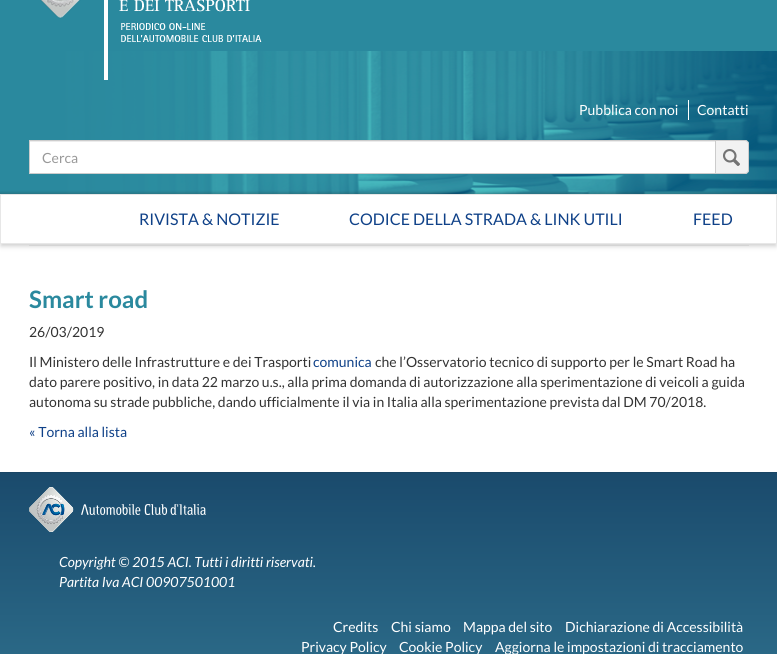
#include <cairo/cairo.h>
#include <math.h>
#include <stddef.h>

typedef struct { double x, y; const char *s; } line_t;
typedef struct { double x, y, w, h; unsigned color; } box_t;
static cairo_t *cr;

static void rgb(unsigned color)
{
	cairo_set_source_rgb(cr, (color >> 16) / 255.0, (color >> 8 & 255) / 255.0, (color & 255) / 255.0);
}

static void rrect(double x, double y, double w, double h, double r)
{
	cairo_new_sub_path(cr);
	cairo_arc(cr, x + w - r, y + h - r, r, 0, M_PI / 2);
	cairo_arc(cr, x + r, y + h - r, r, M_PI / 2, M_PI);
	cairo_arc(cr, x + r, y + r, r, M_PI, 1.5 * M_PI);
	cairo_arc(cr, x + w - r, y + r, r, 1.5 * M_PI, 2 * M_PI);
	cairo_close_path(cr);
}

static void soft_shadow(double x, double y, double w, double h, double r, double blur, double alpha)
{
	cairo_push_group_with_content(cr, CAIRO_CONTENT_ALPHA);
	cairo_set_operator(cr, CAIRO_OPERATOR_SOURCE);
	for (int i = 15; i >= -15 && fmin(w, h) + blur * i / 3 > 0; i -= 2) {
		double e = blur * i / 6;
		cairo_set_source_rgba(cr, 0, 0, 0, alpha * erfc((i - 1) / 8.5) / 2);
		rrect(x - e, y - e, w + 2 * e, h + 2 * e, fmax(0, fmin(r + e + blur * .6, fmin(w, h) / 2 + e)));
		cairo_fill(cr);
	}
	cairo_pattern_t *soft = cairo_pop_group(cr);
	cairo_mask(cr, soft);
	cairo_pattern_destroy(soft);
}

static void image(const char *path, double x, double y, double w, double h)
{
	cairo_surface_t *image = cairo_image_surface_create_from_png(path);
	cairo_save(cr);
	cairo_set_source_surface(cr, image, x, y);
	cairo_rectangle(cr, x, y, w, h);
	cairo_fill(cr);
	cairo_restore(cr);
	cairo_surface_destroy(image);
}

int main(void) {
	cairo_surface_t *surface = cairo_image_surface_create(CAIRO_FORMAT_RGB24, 777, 654);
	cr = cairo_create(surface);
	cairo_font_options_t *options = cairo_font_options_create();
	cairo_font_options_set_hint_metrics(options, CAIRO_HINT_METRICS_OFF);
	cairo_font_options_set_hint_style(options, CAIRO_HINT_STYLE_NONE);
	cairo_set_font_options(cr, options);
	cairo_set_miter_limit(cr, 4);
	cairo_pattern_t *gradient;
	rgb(0xffffff);
	cairo_paint(cr);
	rgb(0x2a899e);
	cairo_rectangle(cr, 0, 0, 777, 51);
	cairo_fill(cr);
	image("img/1.png", 0, 51, 777, 143);
	image("img/2.png", 40, 0, 222, 80);
	{
		static const box_t items[] = {
			{688, 100, 1, 20, 0xffffff},
			{30, 142, 685, 31, 0xffffff},
			{30, 141, 685, 1, 0xececec},
		};
		for (size_t i = 0; i < sizeof items / sizeof *items; i++) {
			rgb(items[i].color);
			cairo_rectangle(cr, items[i].x, items[i].y, items[i].w, items[i].h);
			cairo_fill(cr);
		}
	}
	cairo_rectangle(cr, 29.5, 140.5, 686, 33);
	rgb(0xcccccc);
	cairo_set_line_width(cr, 1);
	cairo_stroke(cr);
	rgb(0xf2f2f2);
	cairo_new_path(cr);
	cairo_move_to(cr, 715, 140);
	cairo_line_to(cr, 745, 140);
	cairo_curve_to(cr, 747, 140, 749, 142, 749, 144);
	cairo_line_to(cr, 749, 170);
	cairo_curve_to(cr, 749, 172, 747, 174, 745, 174);
	cairo_line_to(cr, 715, 174);
	cairo_close_path(cr);
	cairo_fill(cr);
	image("img/3.png", 723, 149, 17, 17);
	cairo_new_path(cr);
	cairo_move_to(cr, 715.5, 140.5);
	cairo_line_to(cr, 745, 140.5);
	cairo_curve_to(cr, 747, 140.5, 748.5, 142, 748.5, 144);
	cairo_line_to(cr, 748.5, 170);
	cairo_curve_to(cr, 748.5, 172, 747, 173.5, 745, 173.5);
	cairo_line_to(cr, 715.5, 173.5);
	cairo_close_path(cr);
	rgb(0xcccccc);
	cairo_stroke(cr);
	rgb(0xdfdfdf);
	cairo_rectangle(cr, 29, 245, 720, 1);
	cairo_fill(cr);
	cairo_save(cr);
	cairo_set_fill_rule(cr, CAIRO_FILL_RULE_EVEN_ODD);
	cairo_new_path(cr);
	cairo_move_to(cr, 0, 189);
	cairo_line_to(cr, 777, 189);
	cairo_line_to(cr, 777, 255);
	cairo_line_to(cr, 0, 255);
	cairo_close_path(cr);
	cairo_move_to(cr, 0, 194);
	cairo_line_to(cr, 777, 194);
	cairo_line_to(cr, 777, 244);
	cairo_line_to(cr, 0, 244);
	cairo_close_path(cr);
	cairo_clip(cr);
	rgb(0xcccccc);
	soft_shadow(1, 198, 775, 48, 0, 2.5, 1);
	cairo_restore(cr);
	cairo_rectangle(cr, 0.5, 194.5, 776, 49);
	rgb(0xe7e7e7);
	cairo_stroke(cr);
	gradient = cairo_pattern_create_linear(389, 472, 389, 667);
	cairo_pattern_add_color_stop_rgba(gradient, 0, 0.102, 0.29, 0.424, 1);
	cairo_pattern_add_color_stop_rgba(gradient, 1, 0.169, 0.416, 0.533, 1);
	cairo_set_source(cr, gradient);
	cairo_pattern_destroy(gradient);
	cairo_rectangle(cr, 0, 473, 777, 181);
	cairo_fill(cr);
	rgb(0x194565);
	cairo_rectangle(cr, 0, 472, 777, 1);
	cairo_fill(cr);
	image("img/4.png", 29, 487, 177, 45);
	cairo_select_font_face(cr, "Lato", CAIRO_FONT_SLANT_NORMAL, CAIRO_FONT_WEIGHT_NORMAL);
	cairo_set_font_size(cr, 14);
	rgb(0xffffff);
	cairo_move_to(cr, 579, 115);
	cairo_show_text(cr, "Pubblica con noi");
	cairo_move_to(cr, 697, 115);
	cairo_show_text(cr, "Contatti");
	rgb(0x999999);
	cairo_move_to(cr, 42, 163);
	cairo_show_text(cr, "Cerca");
	cairo_set_font_size(cr, 16);
	rgb(0x0f4188);
	{
		static const line_t items[] = {
			{139, 225, "RIVISTA & NOTIZIE"},
			{349, 225, "CODICE DELLA STRADA & LINK UTILI"},
			{693, 225, "FEED"},
		};
		for (size_t i = 0; i < sizeof items / sizeof *items; i++) {
			cairo_move_to(cr, items[i].x, items[i].y);
			cairo_show_text(cr, items[i].s);
		}
	}
	cairo_select_font_face(cr, "Lato", CAIRO_FONT_SLANT_NORMAL, CAIRO_FONT_WEIGHT_BOLD);
	cairo_set_font_size(cr, 24);
	rgb(0x2a899e);
	cairo_move_to(cr, 29, 308);
	cairo_show_text(cr, "Smart road");
	cairo_select_font_face(cr, "Lato", CAIRO_FONT_SLANT_NORMAL, CAIRO_FONT_WEIGHT_NORMAL);
	cairo_set_font_size(cr, 14);
	rgb(0x333333);
	cairo_move_to(cr, 29, 337);
	cairo_show_text(cr, "26/03/2019");
	cairo_move_to(cr, 29, 367);
	cairo_show_text(cr, "Il Ministero delle Infrastrutture e dei Trasporti");
	rgb(0x0f4188);
	cairo_move_to(cr, 313, 367);
	cairo_show_text(cr, "comunica");
	rgb(0x333333);
	{
		static const line_t items[] = {
			{375, 367, "che l’Osservatorio tecnico di supporto per le Smart Road ha"},
			{29, 387, "dato parere positivo, in data 22 marzo u.s., alla prima domanda di autorizzazione alla sperimentazione di veicoli a guida"},
			{29, 407, "autonoma su strade pubbliche, dando ufficialmente il via in Italia alla sperimentazione prevista dal DM 70/2018."},
		};
		for (size_t i = 0; i < sizeof items / sizeof *items; i++) {
			cairo_move_to(cr, items[i].x, items[i].y);
			cairo_show_text(cr, items[i].s);
		}
	}
	rgb(0x0f4188);
	cairo_move_to(cr, 29, 437);
	cairo_show_text(cr, "« Torna alla lista");
	cairo_select_font_face(cr, "Lato", CAIRO_FONT_SLANT_ITALIC, CAIRO_FONT_WEIGHT_NORMAL);
	rgb(0xffffff);
	cairo_move_to(cr, 59, 567);
	cairo_show_text(cr, "Copyright © 2015 ACI. Tutti i diritti riservati.");
	cairo_move_to(cr, 59, 587);
	cairo_show_text(cr, "Partita Iva ACI 00907501001");
	cairo_select_font_face(cr, "Lato", CAIRO_FONT_SLANT_NORMAL, CAIRO_FONT_WEIGHT_NORMAL);
	{
		static const line_t items[] = {
			{333, 632, "Credits"},
			{391, 632, "Chi siamo"},
			{463, 632, "Mappa del sito"},
			{565, 632, "Dichiarazione di Accessibilità"},
			{301, 652, "Privacy Policy"},
			{399, 652, "Cookie Policy"},
			{495, 652, "Aggiorna le impostazioni di tracciamento"},
		};
		for (size_t i = 0; i < sizeof items / sizeof *items; i++) {
			cairo_move_to(cr, items[i].x, items[i].y);
			cairo_show_text(cr, items[i].s);
		}
	}
	cairo_surface_write_to_png(surface, "page.png");
	cairo_font_options_destroy(options);
	cairo_destroy(cr);
	cairo_surface_destroy(surface);
	return 0;
}
